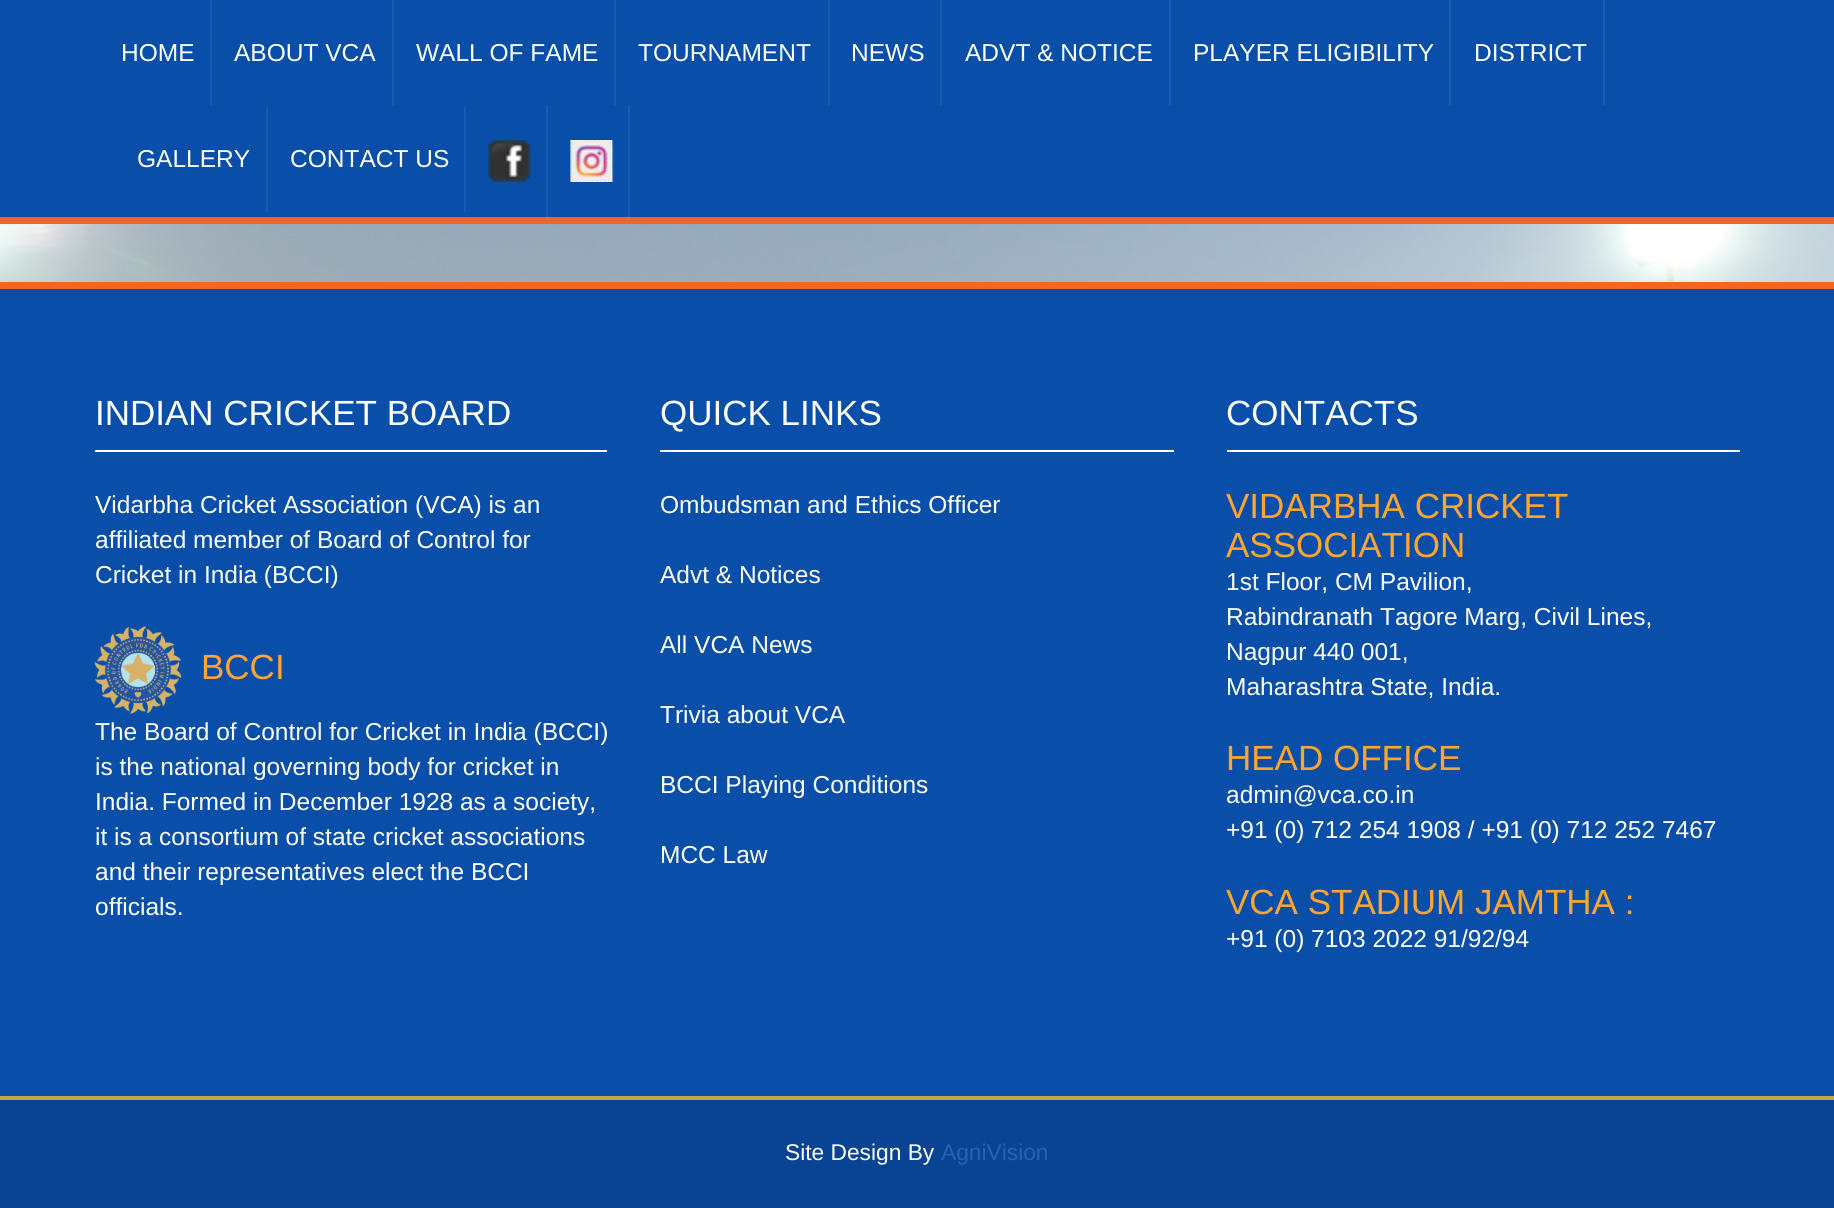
#include <cairo/cairo.h>
#include <math.h>
#include <stddef.h>

typedef struct { double x, y; const char *s; } line_t;
typedef struct { double x, y, w, h; unsigned color; } box_t;
static cairo_t *cr;

static void rgb(unsigned color)
{
	cairo_set_source_rgb(cr, (color >> 16) / 255.0, (color >> 8 & 255) / 255.0, (color & 255) / 255.0);
}

static void image(const char *path, double x, double y, double w, double h)
{
	cairo_surface_t *image = cairo_image_surface_create_from_png(path);
	cairo_save(cr);
	cairo_set_source_surface(cr, image, x, y);
	cairo_rectangle(cr, x, y, w, h);
	cairo_fill(cr);
	cairo_restore(cr);
	cairo_surface_destroy(image);
}

int main(void) {
	cairo_surface_t *surface = cairo_image_surface_create(CAIRO_FORMAT_RGB24, 1834, 1208);
	cr = cairo_create(surface);
	cairo_font_options_t *options = cairo_font_options_create();
	cairo_font_options_set_hint_metrics(options, CAIRO_HINT_METRICS_OFF);
	cairo_font_options_set_hint_style(options, CAIRO_HINT_STYLE_NONE);
	cairo_set_font_options(cr, options);
	cairo_set_miter_limit(cr, 4);
	rgb(0xffffff);
	cairo_paint(cr);
	{
		static const box_t items[] = {
			{0, 0, 1834, 217, 0x094ea8},
			{0, 217, 1834, 7, 0xf26522},
			{210, 0, 2, 105, 0x1a5aae},
			{392, 0, 2, 105, 0x1a5aae},
			{614, 0, 2, 105, 0x1a5aae},
			{828, 0, 2, 105, 0x1a5aae},
			{940, 0, 2, 105, 0x1a5aae},
			{1169, 0, 2, 105, 0x1a5aae},
			{1449, 0, 2, 105, 0x1a5aae},
			{1603, 0, 2, 105, 0x1a5aae},
			{266, 107, 2, 105, 0x1a5aae},
			{464, 107, 2, 105, 0x1a5aae},
			{546, 105, 2, 112, 0x1a5aae},
		};
		for (size_t i = 0; i < sizeof items / sizeof *items; i++) {
			rgb(items[i].color);
			cairo_rectangle(cr, items[i].x, items[i].y, items[i].w, items[i].h);
			cairo_fill(cr);
		}
	}
	image("img/1.png", 488, 140, 43, 42);
	cairo_rectangle(cr, 628, 105, 2, 112);
	cairo_fill(cr);
	image("img/2.png", 570, 140, 44, 42);
	image("img/3.png", 0, 224, 1834, 58);
	{
		static const box_t items[] = {
			{0, 289, 1834, 807, 0x094ea8},
			{0, 282, 1834, 7, 0xf26522},
			{95, 450, 512, 2, 0xffffff},
		};
		for (size_t i = 0; i < sizeof items / sizeof *items; i++) {
			rgb(items[i].color);
			cairo_rectangle(cr, items[i].x, items[i].y, items[i].w, items[i].h);
			cairo_fill(cr);
		}
	}
	image("img/4.png", 94, 626, 88, 88);
	{
		static const box_t items[] = {
			{660, 450, 514, 2, 0xffffff},
			{1227, 450, 513, 2, 0xffffff},
			{0, 1100, 1834, 108, 0x084493},
			{0, 1096, 1834, 4, 0xcca643},
		};
		for (size_t i = 0; i < sizeof items / sizeof *items; i++) {
			rgb(items[i].color);
			cairo_rectangle(cr, items[i].x, items[i].y, items[i].w, items[i].h);
			cairo_fill(cr);
		}
	}
	cairo_select_font_face(cr, "Liberation Sans", CAIRO_FONT_SLANT_NORMAL, CAIRO_FONT_WEIGHT_NORMAL);
	cairo_set_font_size(cr, 24.5);
	rgb(0xffffff);
	{
		static const line_t items[] = {
			{121, 61, "HOME"},
			{234, 61, "ABOUT VCA"},
			{416, 61, "WALL OF FAME"},
			{638, 61, "TOURNAMENT"},
			{851, 61, "NEWS"},
			{965, 61, "ADVT & NOTICE"},
			{1193, 61, "PLAYER ELIGIBILITY"},
			{1474, 61, "DISTRICT"},
			{137, 167, "GALLERY"},
			{290, 167, "CONTACT US"},
		};
		for (size_t i = 0; i < sizeof items / sizeof *items; i++) {
			cairo_move_to(cr, items[i].x, items[i].y);
			cairo_show_text(cr, items[i].s);
		}
	}
	cairo_set_font_size(cr, 35);
	cairo_move_to(cr, 95, 425);
	cairo_show_text(cr, "INDIAN CRICKET BOARD");
	cairo_set_font_size(cr, 24.5);
	{
		static const line_t items[] = {
			{95, 513, "Vidarbha Cricket Association (VCA) is an"},
			{95, 548, "affiliated member of Board of Control for"},
			{95, 583, "Cricket in India (BCCI)"},
		};
		for (size_t i = 0; i < sizeof items / sizeof *items; i++) {
			cairo_move_to(cr, items[i].x, items[i].y);
			cairo_show_text(cr, items[i].s);
		}
	}
	cairo_set_font_size(cr, 35);
	rgb(0xffa530);
	cairo_move_to(cr, 201, 679);
	cairo_show_text(cr, "BCCI");
	cairo_set_font_size(cr, 24.5);
	rgb(0xffffff);
	{
		static const line_t items[] = {
			{95, 740, "The Board of Control for Cricket in India (BCCI)"},
			{95, 775, "is the national governing body for cricket in"},
			{95, 810, "India. Formed in December 1928 as a society,"},
			{95, 845, "it is a consortium of state cricket associations"},
			{95, 880, "and their representatives elect the BCCI"},
			{95, 915, "officials."},
		};
		for (size_t i = 0; i < sizeof items / sizeof *items; i++) {
			cairo_move_to(cr, items[i].x, items[i].y);
			cairo_show_text(cr, items[i].s);
		}
	}
	cairo_set_font_size(cr, 35);
	cairo_move_to(cr, 660, 425);
	cairo_show_text(cr, "QUICK LINKS");
	cairo_set_font_size(cr, 24.5);
	{
		static const line_t items[] = {
			{660, 513, "Ombudsman and Ethics Officer"},
			{660, 583, "Advt & Notices"},
			{660, 653, "All VCA News"},
			{660, 723, "Trivia about VCA"},
			{660, 793, "BCCI Playing Conditions"},
			{660, 863, "MCC Law"},
		};
		for (size_t i = 0; i < sizeof items / sizeof *items; i++) {
			cairo_move_to(cr, items[i].x, items[i].y);
			cairo_show_text(cr, items[i].s);
		}
	}
	cairo_set_font_size(cr, 35);
	cairo_move_to(cr, 1226, 425);
	cairo_show_text(cr, "CONTACTS");
	rgb(0xffa530);
	cairo_move_to(cr, 1226, 518);
	cairo_show_text(cr, "VIDARBHA CRICKET");
	cairo_move_to(cr, 1226, 557);
	cairo_show_text(cr, "ASSOCIATION");
	cairo_set_font_size(cr, 24.5);
	rgb(0xffffff);
	{
		static const line_t items[] = {
			{1226, 590, "1st Floor, CM Pavilion,"},
			{1226, 625, "Rabindranath Tagore Marg, Civil Lines,"},
			{1226, 660, "Nagpur 440 001,"},
			{1226, 695, "Maharashtra State, India."},
		};
		for (size_t i = 0; i < sizeof items / sizeof *items; i++) {
			cairo_move_to(cr, items[i].x, items[i].y);
			cairo_show_text(cr, items[i].s);
		}
	}
	cairo_set_font_size(cr, 35);
	rgb(0xffa530);
	cairo_move_to(cr, 1226, 770);
	cairo_show_text(cr, "HEAD OFFICE");
	cairo_set_font_size(cr, 24.5);
	rgb(0xffffff);
	cairo_move_to(cr, 1226, 803);
	cairo_show_text(cr, "admin@vca.co.in");
	cairo_move_to(cr, 1226, 838);
	cairo_show_text(cr, "+91 (0) 712 254 1908 / +91 (0) 712 252 7467");
	cairo_set_font_size(cr, 35);
	rgb(0xffa530);
	cairo_move_to(cr, 1226, 914);
	cairo_show_text(cr, "VCA STADIUM JAMTHA :");
	cairo_set_font_size(cr, 24.5);
	rgb(0xffffff);
	cairo_move_to(cr, 1226, 947);
	cairo_show_text(cr, "+91 (0) 7103 2022 91/92/94");
	cairo_set_font_size(cr, 22.75);
	cairo_move_to(cr, 785, 1160);
	cairo_show_text(cr, "Site Design By");
	rgb(0x2562b3);
	cairo_move_to(cr, 941, 1160);
	cairo_show_text(cr, "AgniVision");
	cairo_surface_write_to_png(surface, "page.png");
	cairo_font_options_destroy(options);
	cairo_destroy(cr);
	cairo_surface_destroy(surface);
	return 0;
}
